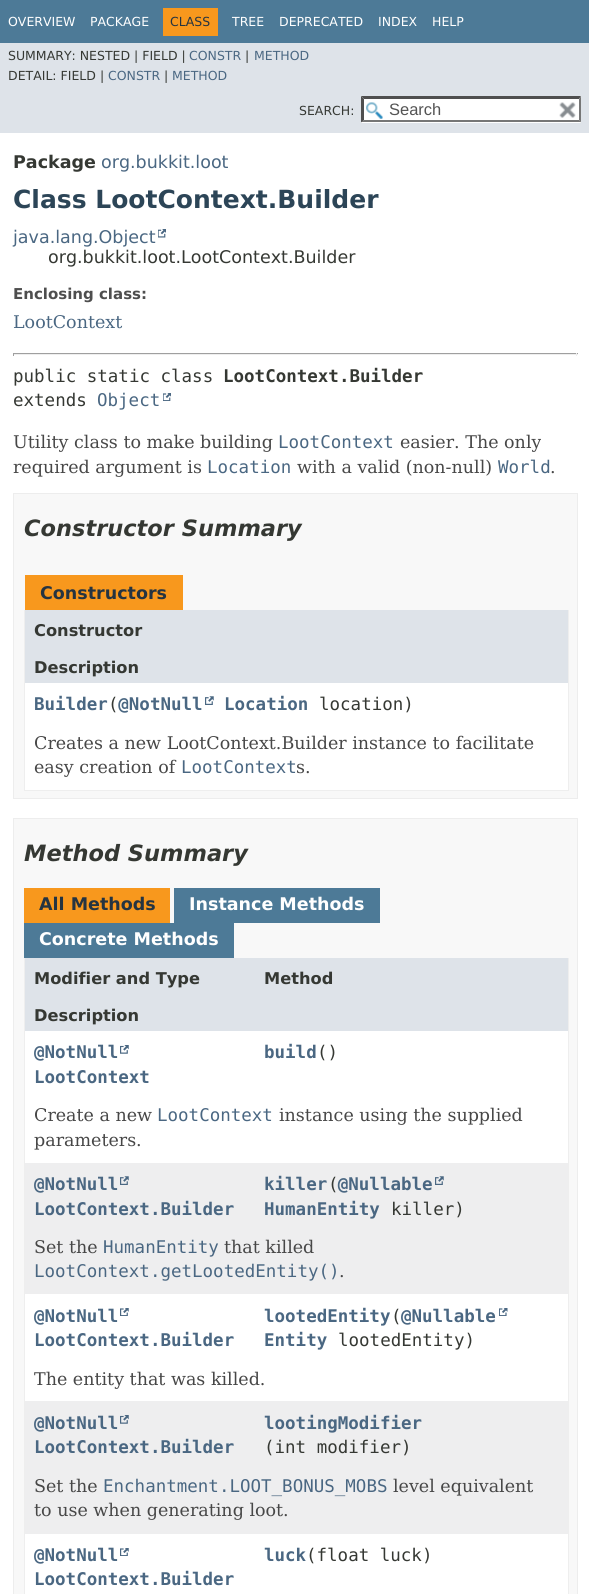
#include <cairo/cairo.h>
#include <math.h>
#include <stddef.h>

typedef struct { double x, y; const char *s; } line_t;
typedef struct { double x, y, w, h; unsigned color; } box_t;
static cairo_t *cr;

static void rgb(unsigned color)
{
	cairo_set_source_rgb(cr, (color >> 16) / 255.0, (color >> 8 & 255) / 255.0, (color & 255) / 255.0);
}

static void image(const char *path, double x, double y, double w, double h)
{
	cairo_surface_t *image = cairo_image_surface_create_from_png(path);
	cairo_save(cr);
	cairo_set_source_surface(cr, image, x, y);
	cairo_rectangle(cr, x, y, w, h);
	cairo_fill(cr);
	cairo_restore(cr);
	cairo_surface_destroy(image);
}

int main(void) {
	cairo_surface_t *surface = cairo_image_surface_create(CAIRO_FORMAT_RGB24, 589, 1594);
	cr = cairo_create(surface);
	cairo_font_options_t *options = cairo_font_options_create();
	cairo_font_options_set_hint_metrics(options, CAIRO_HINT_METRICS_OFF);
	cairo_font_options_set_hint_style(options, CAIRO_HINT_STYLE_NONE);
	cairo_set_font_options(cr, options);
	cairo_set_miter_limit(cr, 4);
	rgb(0xffffff);
	cairo_paint(cr);
	{
		static const box_t items[] = {
			{0, 0, 589, 43, 0x4d7a97},
			{163, 8, 55, 28, 0xf8981d},
			{0, 43, 589, 90, 0xdee3e9},
			{361, 96, 220, 27, 0xffffff},
		};
		for (size_t i = 0; i < sizeof items / sizeof *items; i++) {
			rgb(items[i].color);
			cairo_rectangle(cr, items[i].x, items[i].y, items[i].w, items[i].h);
			cairo_fill(cr);
		}
	}
	image("img/1.png", 366, 102, 17, 17);
	rgb(0x4f4f4f);
	cairo_new_path(cr);
	cairo_move_to(cr, 361, 96);
	cairo_line_to(cr, 581, 96);
	cairo_line_to(cr, 579, 99);
	cairo_line_to(cr, 364, 99);
	cairo_close_path(cr);
	cairo_fill(cr);
	rgb(0x767676);
	cairo_new_path(cr);
	cairo_move_to(cr, 581, 96);
	cairo_line_to(cr, 581, 122.5);
	cairo_line_to(cr, 579, 120);
	cairo_line_to(cr, 579, 99);
	cairo_close_path(cr);
	cairo_fill(cr);
	cairo_new_path(cr);
	cairo_move_to(cr, 581, 122);
	cairo_line_to(cr, 361, 122);
	cairo_line_to(cr, 364, 120);
	cairo_line_to(cr, 579, 120);
	cairo_close_path(cr);
	cairo_fill(cr);
	rgb(0x4f4f4f);
	cairo_new_path(cr);
	cairo_move_to(cr, 361, 122.5);
	cairo_line_to(cr, 361, 96);
	cairo_line_to(cr, 364, 99);
	cairo_line_to(cr, 364, 120);
	cairo_close_path(cr);
	cairo_fill(cr);
	image("img/2.png", 559, 102, 17, 16);
	image("img/3.png", 158, 229, 8, 9);
	{
		static const box_t items[] = {
			{13, 353, 565, 1, 0x9f9f9f},
			{576, 353, 1, 3, 0xeeeeee},
			{13, 354, 565, 1, 0xeeeeee},
			{13, 353, 1, 3, 0x9f9f9f},
		};
		for (size_t i = 0; i < sizeof items / sizeof *items; i++) {
			rgb(items[i].color);
			cairo_rectangle(cr, items[i].x, items[i].y, items[i].w, items[i].h);
			cairo_fill(cr);
		}
	}
	image("img/4.png", 163, 393, 8, 8);
	rgb(0xf8f8f8);
	cairo_rectangle(cr, 13.5, 493.5, 564, 305);
	cairo_fill_preserve(cr);
	rgb(0xededed);
	cairo_set_line_width(cr, 1);
	cairo_stroke(cr);
	{
		static const box_t items[] = {
			{25, 575, 158, 35, 0xf8981d},
			{568, 610, 1, 181, 0xeeeeee},
			{24, 790, 545, 1, 0xeeeeee},
			{24, 610, 1, 181, 0xeeeeee},
			{25, 610, 543, 73, 0xdee3e9},
			{25, 683, 543, 107, 0xffffff},
		};
		for (size_t i = 0; i < sizeof items / sizeof *items; i++) {
			rgb(items[i].color);
			cairo_rectangle(cr, items[i].x, items[i].y, items[i].w, items[i].h);
			cairo_fill(cr);
		}
	}
	image("img/5.png", 205, 696, 9, 9);
	rgb(0xf8f8f8);
	cairo_rectangle(cr, 13.5, 818.5, 564, 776);
	cairo_fill_preserve(cr);
	rgb(0xededed);
	cairo_stroke(cr);
	{
		static const box_t items[] = {
			{24, 888, 146, 35, 0xf8981d},
			{174, 888, 206, 35, 0x4d7a97},
			{24, 923, 210, 35, 0x4d7a97},
			{568, 958, 1, 636, 0xeeeeee},
			{24, 958, 1, 636, 0xeeeeee},
			{25, 958, 543, 36, 0xdee3e9},
			{25, 994, 543, 37, 0xdee3e9},
			{25, 1031, 543, 63, 0xffffff},
		};
		for (size_t i = 0; i < sizeof items / sizeof *items; i++) {
			rgb(items[i].color);
			cairo_rectangle(cr, items[i].x, items[i].y, items[i].w, items[i].h);
			cairo_fill(cr);
		}
	}
	image("img/6.png", 120, 1045, 9, 9);
	cairo_rectangle(cr, 25, 1094, 543, 69);
	cairo_fill(cr);
	rgb(0xeeeeef);
	cairo_rectangle(cr, 25, 1163, 543, 62);
	cairo_fill(cr);
	image("img/7.png", 120, 1176, 9, 9);
	image("img/7.png", 435, 1176, 9, 9);
	cairo_rectangle(cr, 25, 1225, 543, 69);
	cairo_fill(cr);
	rgb(0xffffff);
	cairo_rectangle(cr, 25, 1294, 543, 64);
	cairo_fill(cr);
	image("img/8.png", 120, 1308, 9, 8);
	image("img/9.png", 499, 1308, 9, 8);
	cairo_rectangle(cr, 25, 1358, 543, 43);
	cairo_fill(cr);
	rgb(0xeeeeef);
	cairo_rectangle(cr, 25, 1401, 543, 63);
	cairo_fill(cr);
	image("img/10.png", 120, 1415, 9, 9);
	cairo_rectangle(cr, 25, 1464, 543, 70);
	cairo_fill(cr);
	rgb(0xffffff);
	cairo_rectangle(cr, 25, 1534, 543, 60);
	cairo_fill(cr);
	image("img/8.png", 120, 1548, 9, 8);
	cairo_select_font_face(cr, "DejaVu Sans", CAIRO_FONT_SLANT_NORMAL, CAIRO_FONT_WEIGHT_NORMAL);
	cairo_set_font_size(cr, 12.5);
	cairo_move_to(cr, 8, 26);
	cairo_show_text(cr, "OVERVIEW");
	cairo_move_to(cr, 90, 26);
	cairo_show_text(cr, "PACKAGE");
	rgb(0x253441);
	cairo_move_to(cr, 170, 26);
	cairo_show_text(cr, "CLASS");
	rgb(0xffffff);
	{
		static const line_t items[] = {
			{232, 26, "TREE"},
			{279, 26, "DEPRECATED"},
			{378, 26, "INDEX"},
			{432, 26, "HELP"},
		};
		for (size_t i = 0; i < sizeof items / sizeof *items; i++) {
			cairo_move_to(cr, items[i].x, items[i].y);
			cairo_show_text(cr, items[i].s);
		}
	}
	rgb(0x353833);
	cairo_move_to(cr, 8, 60);
	cairo_show_text(cr, "SUMMARY: NESTED | FIELD |");
	rgb(0x4a6782);
	cairo_move_to(cr, 189, 60);
	cairo_show_text(cr, "CONSTR");
	rgb(0x353833);
	cairo_move_to(cr, 245, 60);
	cairo_show_text(cr, "|");
	rgb(0x4a6782);
	cairo_move_to(cr, 254, 60);
	cairo_show_text(cr, "METHOD");
	rgb(0x353833);
	cairo_move_to(cr, 8, 80);
	cairo_show_text(cr, "DETAIL: FIELD |");
	rgb(0x4a6782);
	cairo_move_to(cr, 108, 80);
	cairo_show_text(cr, "CONSTR");
	rgb(0x353833);
	cairo_move_to(cr, 164, 80);
	cairo_show_text(cr, "|");
	rgb(0x4a6782);
	cairo_move_to(cr, 172, 80);
	cairo_show_text(cr, "METHOD");
	rgb(0x353833);
	cairo_move_to(cr, 299, 115);
	cairo_show_text(cr, "SEARCH:");
	cairo_select_font_face(cr, "Liberation Sans", CAIRO_FONT_SLANT_NORMAL, CAIRO_FONT_WEIGHT_NORMAL);
	cairo_set_font_size(cr, 16.5);
	rgb(0x545454);
	cairo_move_to(cr, 389, 115);
	cairo_show_text(cr, "Search");
	cairo_select_font_face(cr, "DejaVu Sans", CAIRO_FONT_SLANT_NORMAL, CAIRO_FONT_WEIGHT_BOLD);
	cairo_set_font_size(cr, 17.5);
	rgb(0x353833);
	cairo_move_to(cr, 13, 168);
	cairo_show_text(cr, "Package");
	cairo_select_font_face(cr, "DejaVu Sans", CAIRO_FONT_SLANT_NORMAL, CAIRO_FONT_WEIGHT_NORMAL);
	rgb(0x4a6782);
	cairo_move_to(cr, 101, 168);
	cairo_show_text(cr, "org.bukkit.loot");
	cairo_select_font_face(cr, "DejaVu Sans", CAIRO_FONT_SLANT_NORMAL, CAIRO_FONT_WEIGHT_BOLD);
	cairo_set_font_size(cr, 25);
	rgb(0x2c4557);
	cairo_move_to(cr, 13, 208);
	cairo_show_text(cr, "Class LootContext.Builder");
	cairo_select_font_face(cr, "DejaVu Sans", CAIRO_FONT_SLANT_NORMAL, CAIRO_FONT_WEIGHT_NORMAL);
	cairo_set_font_size(cr, 17.5);
	rgb(0x4a6782);
	cairo_move_to(cr, 13, 243);
	cairo_show_text(cr, "java.lang.Object");
	rgb(0x353833);
	cairo_move_to(cr, 48, 263);
	cairo_show_text(cr, "org.bukkit.loot.LootContext.Builder");
	cairo_select_font_face(cr, "DejaVu Sans", CAIRO_FONT_SLANT_NORMAL, CAIRO_FONT_WEIGHT_BOLD);
	cairo_set_font_size(cr, 15);
	rgb(0x4e4e4e);
	cairo_move_to(cr, 13, 299);
	cairo_show_text(cr, "Enclosing class:");
	cairo_select_font_face(cr, "DejaVu Serif", CAIRO_FONT_SLANT_NORMAL, CAIRO_FONT_WEIGHT_NORMAL);
	cairo_set_font_size(cr, 17.5);
	rgb(0x4a6782);
	cairo_move_to(cr, 13, 328);
	cairo_show_text(cr, "LootContext");
	cairo_select_font_face(cr, "DejaVu Sans Mono", CAIRO_FONT_SLANT_NORMAL, CAIRO_FONT_WEIGHT_NORMAL);
	rgb(0x353833);
	cairo_move_to(cr, 13, 382);
	cairo_show_text(cr, "public static class");
	cairo_select_font_face(cr, "DejaVu Sans Mono", CAIRO_FONT_SLANT_NORMAL, CAIRO_FONT_WEIGHT_BOLD);
	cairo_move_to(cr, 223, 382);
	cairo_show_text(cr, "LootContext.Builder");
	cairo_select_font_face(cr, "DejaVu Sans Mono", CAIRO_FONT_SLANT_NORMAL, CAIRO_FONT_WEIGHT_NORMAL);
	cairo_move_to(cr, 13, 406);
	cairo_show_text(cr, "extends");
	rgb(0x4a6782);
	cairo_move_to(cr, 97, 406);
	cairo_show_text(cr, "Object");
	cairo_select_font_face(cr, "DejaVu Serif", CAIRO_FONT_SLANT_NORMAL, CAIRO_FONT_WEIGHT_NORMAL);
	rgb(0x474747);
	cairo_move_to(cr, 13, 448);
	cairo_show_text(cr, "Utility class to make building");
	cairo_select_font_face(cr, "DejaVu Sans Mono", CAIRO_FONT_SLANT_NORMAL, CAIRO_FONT_WEIGHT_NORMAL);
	rgb(0x4a6782);
	cairo_move_to(cr, 278, 448);
	cairo_show_text(cr, "LootContext");
	cairo_select_font_face(cr, "DejaVu Serif", CAIRO_FONT_SLANT_NORMAL, CAIRO_FONT_WEIGHT_NORMAL);
	rgb(0x474747);
	cairo_move_to(cr, 400, 448);
	cairo_show_text(cr, "easier. The only");
	cairo_move_to(cr, 13, 473);
	cairo_show_text(cr, "required argument is");
	cairo_select_font_face(cr, "DejaVu Sans Mono", CAIRO_FONT_SLANT_NORMAL, CAIRO_FONT_WEIGHT_NORMAL);
	rgb(0x4a6782);
	cairo_move_to(cr, 207, 473);
	cairo_show_text(cr, "Location");
	cairo_select_font_face(cr, "DejaVu Serif", CAIRO_FONT_SLANT_NORMAL, CAIRO_FONT_WEIGHT_NORMAL);
	rgb(0x474747);
	cairo_move_to(cr, 297, 473);
	cairo_show_text(cr, "with a valid (non-null)");
	cairo_select_font_face(cr, "DejaVu Sans Mono", CAIRO_FONT_SLANT_NORMAL, CAIRO_FONT_WEIGHT_NORMAL);
	rgb(0x4a6782);
	cairo_move_to(cr, 498, 473);
	cairo_show_text(cr, "World");
	cairo_select_font_face(cr, "DejaVu Serif", CAIRO_FONT_SLANT_NORMAL, CAIRO_FONT_WEIGHT_NORMAL);
	rgb(0x474747);
	cairo_move_to(cr, 550, 473);
	cairo_show_text(cr, ".");
	cairo_select_font_face(cr, "DejaVu Sans", CAIRO_FONT_SLANT_ITALIC, CAIRO_FONT_WEIGHT_BOLD);
	cairo_set_font_size(cr, 22.5);
	rgb(0x353833);
	cairo_move_to(cr, 24, 536);
	cairo_show_text(cr, "Constructor Summary");
	cairo_select_font_face(cr, "DejaVu Sans", CAIRO_FONT_SLANT_NORMAL, CAIRO_FONT_WEIGHT_BOLD);
	cairo_set_font_size(cr, 17.5);
	rgb(0x253441);
	cairo_move_to(cr, 40, 599);
	cairo_show_text(cr, "Constructors");
	cairo_set_font_size(cr, 16.25);
	rgb(0x353833);
	cairo_move_to(cr, 34, 636);
	cairo_show_text(cr, "Constructor");
	cairo_move_to(cr, 34, 673);
	cairo_show_text(cr, "Description");
	cairo_select_font_face(cr, "DejaVu Sans Mono", CAIRO_FONT_SLANT_NORMAL, CAIRO_FONT_WEIGHT_BOLD);
	cairo_set_font_size(cr, 17.5);
	rgb(0x4a6782);
	cairo_move_to(cr, 34, 710);
	cairo_show_text(cr, "Builder @NotNull");
	cairo_move_to(cr, 224, 710);
	cairo_show_text(cr, "Location");
	cairo_select_font_face(cr, "DejaVu Sans Mono", CAIRO_FONT_SLANT_NORMAL, CAIRO_FONT_WEIGHT_NORMAL);
	rgb(0x353833);
	cairo_move_to(cr, 108, 710);
	cairo_show_text(cr, "(");
	cairo_move_to(cr, 319, 710);
	cairo_show_text(cr, "location)");
	cairo_select_font_face(cr, "DejaVu Serif", CAIRO_FONT_SLANT_NORMAL, CAIRO_FONT_WEIGHT_NORMAL);
	rgb(0x474747);
	cairo_move_to(cr, 34, 749);
	cairo_show_text(cr, "Creates a new LootContext.Builder instance to facilitate");
	cairo_move_to(cr, 34, 773);
	cairo_show_text(cr, "easy creation of");
	cairo_select_font_face(cr, "DejaVu Sans Mono", CAIRO_FONT_SLANT_NORMAL, CAIRO_FONT_WEIGHT_NORMAL);
	rgb(0x4a6782);
	cairo_move_to(cr, 181, 773);
	cairo_show_text(cr, "LootContext");
	cairo_select_font_face(cr, "DejaVu Serif", CAIRO_FONT_SLANT_NORMAL, CAIRO_FONT_WEIGHT_NORMAL);
	rgb(0x474747);
	cairo_move_to(cr, 296, 773);
	cairo_show_text(cr, "s.");
	cairo_select_font_face(cr, "DejaVu Sans", CAIRO_FONT_SLANT_ITALIC, CAIRO_FONT_WEIGHT_BOLD);
	cairo_set_font_size(cr, 22.5);
	rgb(0x353833);
	cairo_move_to(cr, 24, 861);
	cairo_show_text(cr, "Method Summary");
	cairo_select_font_face(cr, "DejaVu Sans", CAIRO_FONT_SLANT_NORMAL, CAIRO_FONT_WEIGHT_BOLD);
	cairo_set_font_size(cr, 17.5);
	rgb(0x253441);
	cairo_move_to(cr, 39, 910);
	cairo_show_text(cr, "All Methods");
	rgb(0xffffff);
	cairo_move_to(cr, 189, 910);
	cairo_show_text(cr, "Instance Methods");
	cairo_move_to(cr, 39, 945);
	cairo_show_text(cr, "Concrete Methods");
	cairo_set_font_size(cr, 16.25);
	rgb(0x353833);
	{
		static const line_t items[] = {
			{34, 984, "Modifier and Type"},
			{264, 984, "Method"},
			{34, 1021, "Description"},
		};
		for (size_t i = 0; i < sizeof items / sizeof *items; i++) {
			cairo_move_to(cr, items[i].x, items[i].y);
			cairo_show_text(cr, items[i].s);
		}
	}
	cairo_select_font_face(cr, "DejaVu Sans Mono", CAIRO_FONT_SLANT_NORMAL, CAIRO_FONT_WEIGHT_BOLD);
	cairo_set_font_size(cr, 17.5);
	rgb(0x4a6782);
	{
		static const line_t items[] = {
			{34, 1058, "@NotNull"},
			{34, 1083, "LootContext"},
			{264, 1058, "build"},
		};
		for (size_t i = 0; i < sizeof items / sizeof *items; i++) {
			cairo_move_to(cr, items[i].x, items[i].y);
			cairo_show_text(cr, items[i].s);
		}
	}
	cairo_select_font_face(cr, "DejaVu Sans Mono", CAIRO_FONT_SLANT_NORMAL, CAIRO_FONT_WEIGHT_NORMAL);
	rgb(0x353833);
	cairo_move_to(cr, 317, 1058);
	cairo_show_text(cr, "()");
	cairo_select_font_face(cr, "DejaVu Serif", CAIRO_FONT_SLANT_NORMAL, CAIRO_FONT_WEIGHT_NORMAL);
	rgb(0x474747);
	cairo_move_to(cr, 34, 1121);
	cairo_show_text(cr, "Create a new");
	cairo_select_font_face(cr, "DejaVu Sans Mono", CAIRO_FONT_SLANT_NORMAL, CAIRO_FONT_WEIGHT_NORMAL);
	rgb(0x4a6782);
	cairo_move_to(cr, 157, 1121);
	cairo_show_text(cr, "LootContext");
	cairo_select_font_face(cr, "DejaVu Serif", CAIRO_FONT_SLANT_NORMAL, CAIRO_FONT_WEIGHT_NORMAL);
	rgb(0x474747);
	cairo_move_to(cr, 279, 1121);
	cairo_show_text(cr, "instance using the supplied");
	cairo_move_to(cr, 34, 1146);
	cairo_show_text(cr, "parameters.");
	cairo_select_font_face(cr, "DejaVu Sans Mono", CAIRO_FONT_SLANT_NORMAL, CAIRO_FONT_WEIGHT_BOLD);
	rgb(0x4a6782);
	{
		static const line_t items[] = {
			{34, 1190, "@NotNull"},
			{34, 1215, "LootContext.Builder"},
			{264, 1190, "killer @Nullable"},
		};
		for (size_t i = 0; i < sizeof items / sizeof *items; i++) {
			cairo_move_to(cr, items[i].x, items[i].y);
			cairo_show_text(cr, items[i].s);
		}
	}
	cairo_select_font_face(cr, "DejaVu Sans Mono", CAIRO_FONT_SLANT_NORMAL, CAIRO_FONT_WEIGHT_NORMAL);
	rgb(0x353833);
	cairo_move_to(cr, 328, 1190);
	cairo_show_text(cr, "(");
	cairo_select_font_face(cr, "DejaVu Sans Mono", CAIRO_FONT_SLANT_NORMAL, CAIRO_FONT_WEIGHT_BOLD);
	rgb(0x4a6782);
	cairo_move_to(cr, 264, 1215);
	cairo_show_text(cr, "HumanEntity");
	cairo_select_font_face(cr, "DejaVu Sans Mono", CAIRO_FONT_SLANT_NORMAL, CAIRO_FONT_WEIGHT_NORMAL);
	rgb(0x353833);
	cairo_move_to(cr, 391, 1215);
	cairo_show_text(cr, "killer)");
	cairo_select_font_face(cr, "DejaVu Serif", CAIRO_FONT_SLANT_NORMAL, CAIRO_FONT_WEIGHT_NORMAL);
	rgb(0x474747);
	cairo_move_to(cr, 34, 1253);
	cairo_show_text(cr, "Set the");
	cairo_select_font_face(cr, "DejaVu Sans Mono", CAIRO_FONT_SLANT_NORMAL, CAIRO_FONT_WEIGHT_NORMAL);
	rgb(0x4a6782);
	cairo_move_to(cr, 103, 1253);
	cairo_show_text(cr, "HumanEntity");
	cairo_select_font_face(cr, "DejaVu Serif", CAIRO_FONT_SLANT_NORMAL, CAIRO_FONT_WEIGHT_NORMAL);
	rgb(0x474747);
	cairo_move_to(cr, 224, 1253);
	cairo_show_text(cr, "that killed");
	cairo_select_font_face(cr, "DejaVu Sans Mono", CAIRO_FONT_SLANT_NORMAL, CAIRO_FONT_WEIGHT_NORMAL);
	rgb(0x4a6782);
	cairo_move_to(cr, 34, 1277);
	cairo_show_text(cr, "LootContext.getLootedEntity()");
	cairo_select_font_face(cr, "DejaVu Serif", CAIRO_FONT_SLANT_NORMAL, CAIRO_FONT_WEIGHT_NORMAL);
	rgb(0x474747);
	cairo_move_to(cr, 339, 1277);
	cairo_show_text(cr, ".");
	cairo_select_font_face(cr, "DejaVu Sans Mono", CAIRO_FONT_SLANT_NORMAL, CAIRO_FONT_WEIGHT_BOLD);
	rgb(0x4a6782);
	{
		static const line_t items[] = {
			{34, 1322, "@NotNull"},
			{34, 1346, "LootContext.Builder"},
			{264, 1322, "lootedEntity @Nullable"},
		};
		for (size_t i = 0; i < sizeof items / sizeof *items; i++) {
			cairo_move_to(cr, items[i].x, items[i].y);
			cairo_show_text(cr, items[i].s);
		}
	}
	cairo_select_font_face(cr, "DejaVu Sans Mono", CAIRO_FONT_SLANT_NORMAL, CAIRO_FONT_WEIGHT_NORMAL);
	rgb(0x353833);
	cairo_move_to(cr, 391, 1322);
	cairo_show_text(cr, "(");
	cairo_select_font_face(cr, "DejaVu Sans Mono", CAIRO_FONT_SLANT_NORMAL, CAIRO_FONT_WEIGHT_BOLD);
	rgb(0x4a6782);
	cairo_move_to(cr, 264, 1346);
	cairo_show_text(cr, "Entity");
	cairo_select_font_face(cr, "DejaVu Sans Mono", CAIRO_FONT_SLANT_NORMAL, CAIRO_FONT_WEIGHT_NORMAL);
	rgb(0x353833);
	cairo_move_to(cr, 338, 1346);
	cairo_show_text(cr, "lootedEntity)");
	cairo_select_font_face(cr, "DejaVu Serif", CAIRO_FONT_SLANT_NORMAL, CAIRO_FONT_WEIGHT_NORMAL);
	rgb(0x474747);
	cairo_move_to(cr, 34, 1385);
	cairo_show_text(cr, "The entity that was killed.");
	cairo_select_font_face(cr, "DejaVu Sans Mono", CAIRO_FONT_SLANT_NORMAL, CAIRO_FONT_WEIGHT_BOLD);
	rgb(0x4a6782);
	{
		static const line_t items[] = {
			{34, 1429, "@NotNull"},
			{34, 1453, "LootContext.Builder"},
			{264, 1429, "lootingModifier"},
		};
		for (size_t i = 0; i < sizeof items / sizeof *items; i++) {
			cairo_move_to(cr, items[i].x, items[i].y);
			cairo_show_text(cr, items[i].s);
		}
	}
	cairo_select_font_face(cr, "DejaVu Sans Mono", CAIRO_FONT_SLANT_NORMAL, CAIRO_FONT_WEIGHT_NORMAL);
	rgb(0x353833);
	cairo_move_to(cr, 264, 1453);
	cairo_show_text(cr, "(int modifier)");
	cairo_select_font_face(cr, "DejaVu Serif", CAIRO_FONT_SLANT_NORMAL, CAIRO_FONT_WEIGHT_NORMAL);
	rgb(0x474747);
	cairo_move_to(cr, 34, 1492);
	cairo_show_text(cr, "Set the");
	cairo_select_font_face(cr, "DejaVu Sans Mono", CAIRO_FONT_SLANT_NORMAL, CAIRO_FONT_WEIGHT_NORMAL);
	rgb(0x4a6782);
	cairo_move_to(cr, 103, 1492);
	cairo_show_text(cr, "Enchantment.LOOT_BONUS_MOBS");
	cairo_select_font_face(cr, "DejaVu Serif", CAIRO_FONT_SLANT_NORMAL, CAIRO_FONT_WEIGHT_NORMAL);
	rgb(0x474747);
	cairo_move_to(cr, 393, 1492);
	cairo_show_text(cr, "level equivalent");
	cairo_move_to(cr, 34, 1516);
	cairo_show_text(cr, "to use when generating loot.");
	cairo_select_font_face(cr, "DejaVu Sans Mono", CAIRO_FONT_SLANT_NORMAL, CAIRO_FONT_WEIGHT_BOLD);
	rgb(0x4a6782);
	{
		static const line_t items[] = {
			{34, 1561, "@NotNull"},
			{34, 1585, "LootContext.Builder"},
			{264, 1561, "luck"},
		};
		for (size_t i = 0; i < sizeof items / sizeof *items; i++) {
			cairo_move_to(cr, items[i].x, items[i].y);
			cairo_show_text(cr, items[i].s);
		}
	}
	cairo_select_font_face(cr, "DejaVu Sans Mono", CAIRO_FONT_SLANT_NORMAL, CAIRO_FONT_WEIGHT_NORMAL);
	rgb(0x353833);
	cairo_move_to(cr, 306, 1561);
	cairo_show_text(cr, "(float luck)");
	cairo_surface_write_to_png(surface, "page.png");
	cairo_font_options_destroy(options);
	cairo_destroy(cr);
	cairo_surface_destroy(surface);
	return 0;
}
